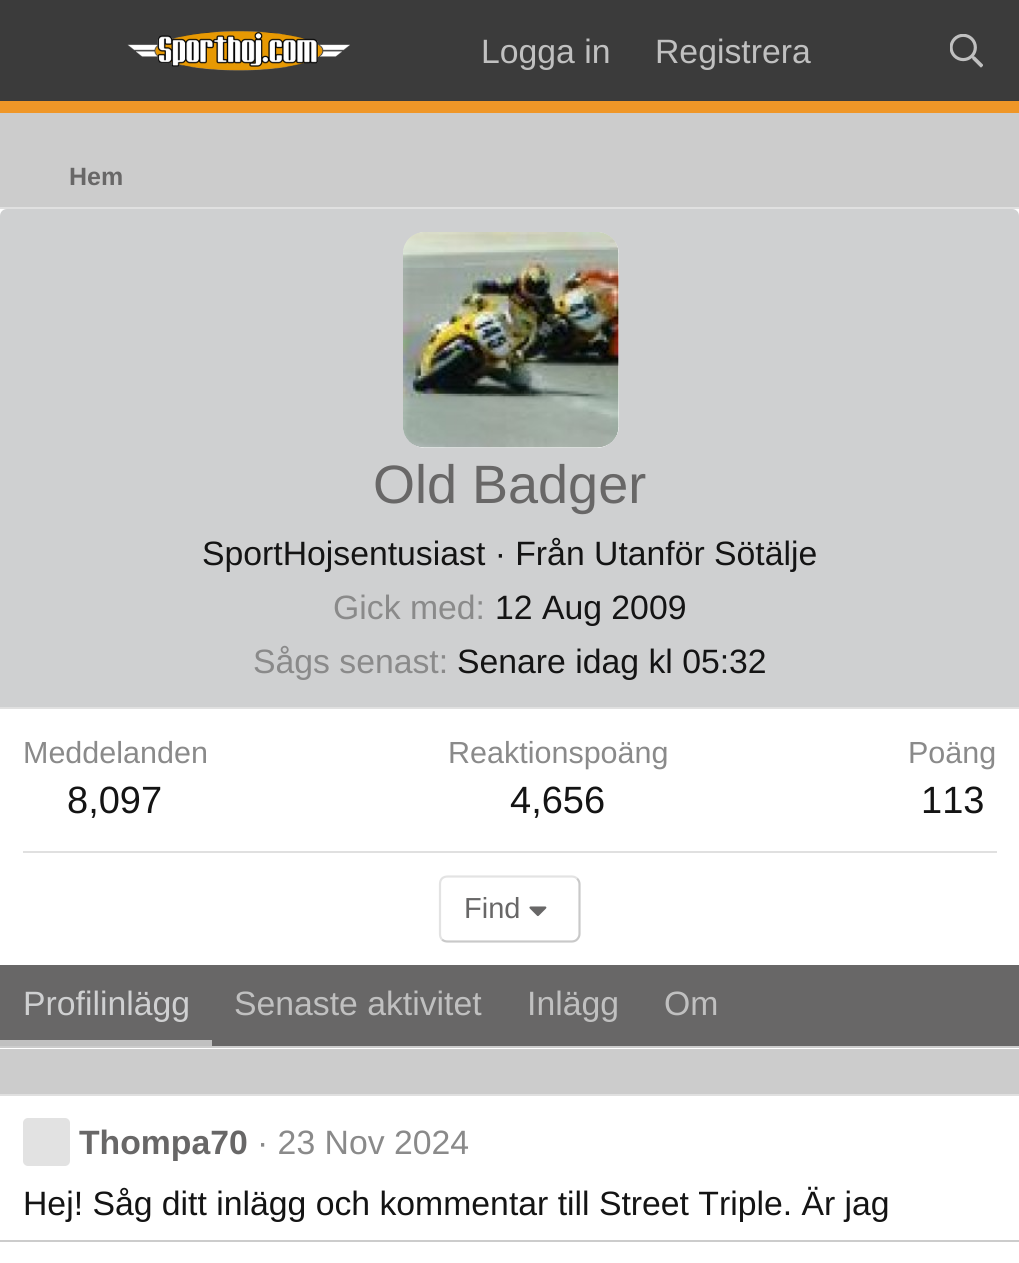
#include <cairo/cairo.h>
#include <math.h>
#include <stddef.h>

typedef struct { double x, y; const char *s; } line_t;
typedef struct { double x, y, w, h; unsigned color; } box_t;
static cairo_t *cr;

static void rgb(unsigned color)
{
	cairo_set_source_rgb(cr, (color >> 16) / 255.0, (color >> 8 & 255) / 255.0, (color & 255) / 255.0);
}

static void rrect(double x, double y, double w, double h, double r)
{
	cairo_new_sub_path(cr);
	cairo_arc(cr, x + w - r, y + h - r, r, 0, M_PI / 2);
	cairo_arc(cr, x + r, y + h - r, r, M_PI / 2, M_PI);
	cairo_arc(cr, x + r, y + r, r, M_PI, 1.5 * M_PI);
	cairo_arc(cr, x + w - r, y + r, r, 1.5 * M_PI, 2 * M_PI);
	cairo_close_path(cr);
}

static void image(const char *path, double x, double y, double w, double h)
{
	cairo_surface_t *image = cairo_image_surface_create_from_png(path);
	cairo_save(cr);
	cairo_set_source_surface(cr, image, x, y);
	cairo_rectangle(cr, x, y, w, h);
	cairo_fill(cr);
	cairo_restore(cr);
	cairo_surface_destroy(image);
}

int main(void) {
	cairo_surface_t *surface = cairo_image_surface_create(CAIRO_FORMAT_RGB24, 1019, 1263);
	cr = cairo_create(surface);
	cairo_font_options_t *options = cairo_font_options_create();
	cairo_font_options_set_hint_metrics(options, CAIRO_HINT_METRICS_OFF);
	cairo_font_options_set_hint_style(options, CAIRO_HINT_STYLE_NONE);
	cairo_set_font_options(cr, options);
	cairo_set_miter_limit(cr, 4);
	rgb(0xcccccc);
	cairo_paint(cr);
	rgb(0xef9627);
	cairo_rectangle(cr, 0, 101, 1019, 12);
	cairo_fill(cr);
	rgb(0x3b3b3b);
	cairo_rectangle(cr, 0, 0, 1019, 101);
	cairo_fill(cr);
	image("img/1.png", 127, 31, 223, 40);
	image("img/2.png", 950, 34, 33, 34);
	{
		static const box_t items[] = {
			{0, 209, 1019, 840, 0xffffff},
			{0, 207, 1019, 2, 0xe0e0e0},
			{0, 1046, 1019, 2, 0xcccccc},
		};
		for (size_t i = 0; i < sizeof items / sizeof *items; i++) {
			rgb(items[i].color);
			cairo_rectangle(cr, items[i].x, items[i].y, items[i].w, items[i].h);
			cairo_fill(cr);
		}
	}
	rgb(0xcfd0d1);
	cairo_new_path(cr);
	cairo_move_to(cr, 7, 209);
	cairo_line_to(cr, 1012, 209);
	cairo_curve_to(cr, 1016, 209, 1019, 212, 1019, 216);
	cairo_line_to(cr, 1019, 709);
	cairo_line_to(cr, 0, 709);
	cairo_line_to(cr, 0, 216);
	cairo_curve_to(cr, 0, 212, 3, 209, 7, 209);
	cairo_close_path(cr);
	cairo_fill(cr);
	rgb(0xe0e0e0);
	cairo_rectangle(cr, 0, 707, 1019, 2);
	cairo_fill(cr);
	rgb(0xffffff);
	rrect(403, 232, 216, 216, 23);
	cairo_fill(cr);
	image("img/3.png", 403, 232, 216, 216);
	rgb(0xe0e0e0);
	cairo_rectangle(cr, 23, 851, 974, 2);
	cairo_fill(cr);
	cairo_new_path(cr);
	cairo_move_to(cr, 577, 878.5);
	cairo_curve_to(cr, 578.5, 880, 579.5, 882, 579.5, 884);
	cairo_line_to(cr, 579.5, 934);
	cairo_curve_to(cr, 579.5, 936, 578.5, 938, 577, 939.5);
	cairo_curve_to(cr, 575.5, 941, 573.5, 941.5, 571.5, 941.5);
	cairo_line_to(cr, 448, 941.5);
	cairo_curve_to(cr, 445.5, 941.5, 443.5, 941, 442, 939.5);
	rgb(0xc9c9c9);
	cairo_set_line_width(cr, 2.2);
	cairo_stroke(cr);
	cairo_new_path(cr);
	cairo_move_to(cr, 442, 939.5);
	cairo_curve_to(cr, 440.5, 938, 440, 936, 440, 934);
	cairo_line_to(cr, 440, 884);
	cairo_curve_to(cr, 440, 882, 440.5, 880, 442, 878.5);
	cairo_curve_to(cr, 443.5, 877, 445.5, 876.5, 448, 876.5);
	cairo_line_to(cr, 571.5, 876.5);
	cairo_curve_to(cr, 573.5, 876.5, 575.5, 877, 577, 878.5);
	rgb(0xe3e3e3);
	cairo_stroke(cr);
	image("img/4.png", 529, 906, 18, 11);
	{
		static const box_t items[] = {
			{0, 965, 1019, 81, 0x686767},
			{0, 1040, 212, 6, 0xc0c0c0},
			{0, 1096, 1019, 144, 0xffffff},
			{0, 1094, 1019, 2, 0xe0e0e0},
		};
		for (size_t i = 0; i < sizeof items / sizeof *items; i++) {
			rgb(items[i].color);
			cairo_rectangle(cr, items[i].x, items[i].y, items[i].w, items[i].h);
			cairo_fill(cr);
		}
	}
	rgb(0xe2e2e2);
	rrect(23, 1118, 47, 48, 5);
	cairo_fill(cr);
	rgb(0xffffff);
	cairo_rectangle(cr, 0, 1242, 1019, 21);
	cairo_fill(cr);
	cairo_select_font_face(cr, "Liberation Sans", CAIRO_FONT_SLANT_NORMAL, CAIRO_FONT_WEIGHT_NORMAL);
	cairo_set_font_size(cr, 33.75);
	rgb(0xc0c0c0);
	cairo_move_to(cr, 481, 63);
	cairo_show_text(cr, "Logga in");
	cairo_move_to(cr, 655, 63);
	cairo_show_text(cr, "Registrera");
	cairo_select_font_face(cr, "Liberation Sans", CAIRO_FONT_SLANT_NORMAL, CAIRO_FONT_WEIGHT_BOLD);
	cairo_set_font_size(cr, 25);
	rgb(0x686767);
	cairo_move_to(cr, 69, 185);
	cairo_show_text(cr, "Hem");
	cairo_select_font_face(cr, "Liberation Sans", CAIRO_FONT_SLANT_NORMAL, CAIRO_FONT_WEIGHT_NORMAL);
	cairo_set_font_size(cr, 54);
	cairo_move_to(cr, 373, 503);
	cairo_show_text(cr, "Old Badger");
	cairo_set_font_size(cr, 33.75);
	rgb(0x141414);
	cairo_move_to(cr, 202, 565);
	cairo_show_text(cr, "SportHojsentusiast · Från Utanför Sötälje");
	rgb(0x8a8a8a);
	cairo_move_to(cr, 333, 619);
	cairo_show_text(cr, "Gick med:");
	rgb(0x141414);
	cairo_move_to(cr, 495, 619);
	cairo_show_text(cr, "12 Aug 2009");
	rgb(0x8a8a8a);
	cairo_move_to(cr, 253, 673);
	cairo_show_text(cr, "Sågs senast:");
	rgb(0x141414);
	cairo_move_to(cr, 457, 673);
	cairo_show_text(cr, "Senare idag kl 05:32");
	cairo_set_font_size(cr, 30.5);
	rgb(0x8a8a8a);
	cairo_move_to(cr, 23, 763);
	cairo_show_text(cr, "Meddelanden");
	cairo_set_font_size(cr, 38);
	rgb(0x141414);
	cairo_move_to(cr, 67, 813);
	cairo_show_text(cr, "8,097");
	cairo_set_font_size(cr, 30.5);
	rgb(0x8a8a8a);
	cairo_move_to(cr, 448, 763);
	cairo_show_text(cr, "Reaktionspoäng");
	cairo_set_font_size(cr, 38);
	rgb(0x141414);
	cairo_move_to(cr, 510, 813);
	cairo_show_text(cr, "4,656");
	cairo_set_font_size(cr, 30.5);
	rgb(0x8a8a8a);
	cairo_move_to(cr, 908, 763);
	cairo_show_text(cr, "Poäng");
	cairo_set_font_size(cr, 38);
	rgb(0x141414);
	cairo_move_to(cr, 921, 813);
	cairo_show_text(cr, "113");
	cairo_set_font_size(cr, 29);
	rgb(0x686767);
	cairo_move_to(cr, 464, 918);
	cairo_show_text(cr, "Find");
	cairo_set_font_size(cr, 33.75);
	rgb(0xcfd0d1);
	cairo_move_to(cr, 23, 1015);
	cairo_show_text(cr, "Profilinlägg");
	rgb(0xc0c0c0);
	{
		static const line_t items[] = {
			{234, 1015, "Senaste aktivitet"},
			{527, 1015, "Inlägg"},
			{664, 1015, "Om"},
		};
		for (size_t i = 0; i < sizeof items / sizeof *items; i++) {
			cairo_move_to(cr, items[i].x, items[i].y);
			cairo_show_text(cr, items[i].s);
		}
	}
	cairo_select_font_face(cr, "Liberation Sans", CAIRO_FONT_SLANT_NORMAL, CAIRO_FONT_WEIGHT_BOLD);
	rgb(0x686767);
	cairo_move_to(cr, 79, 1154);
	cairo_show_text(cr, "Thompa70");
	cairo_select_font_face(cr, "Liberation Sans", CAIRO_FONT_SLANT_NORMAL, CAIRO_FONT_WEIGHT_NORMAL);
	rgb(0x8a8a8a);
	cairo_move_to(cr, 257, 1154);
	cairo_show_text(cr, "· 23 Nov 2024");
	rgb(0x141414);
	cairo_move_to(cr, 23, 1215);
	cairo_show_text(cr, "Hej! Såg ditt inlägg och kommentar till Street Triple. Är jag");
	cairo_surface_write_to_png(surface, "page.png");
	cairo_font_options_destroy(options);
	cairo_destroy(cr);
	cairo_surface_destroy(surface);
	return 0;
}
